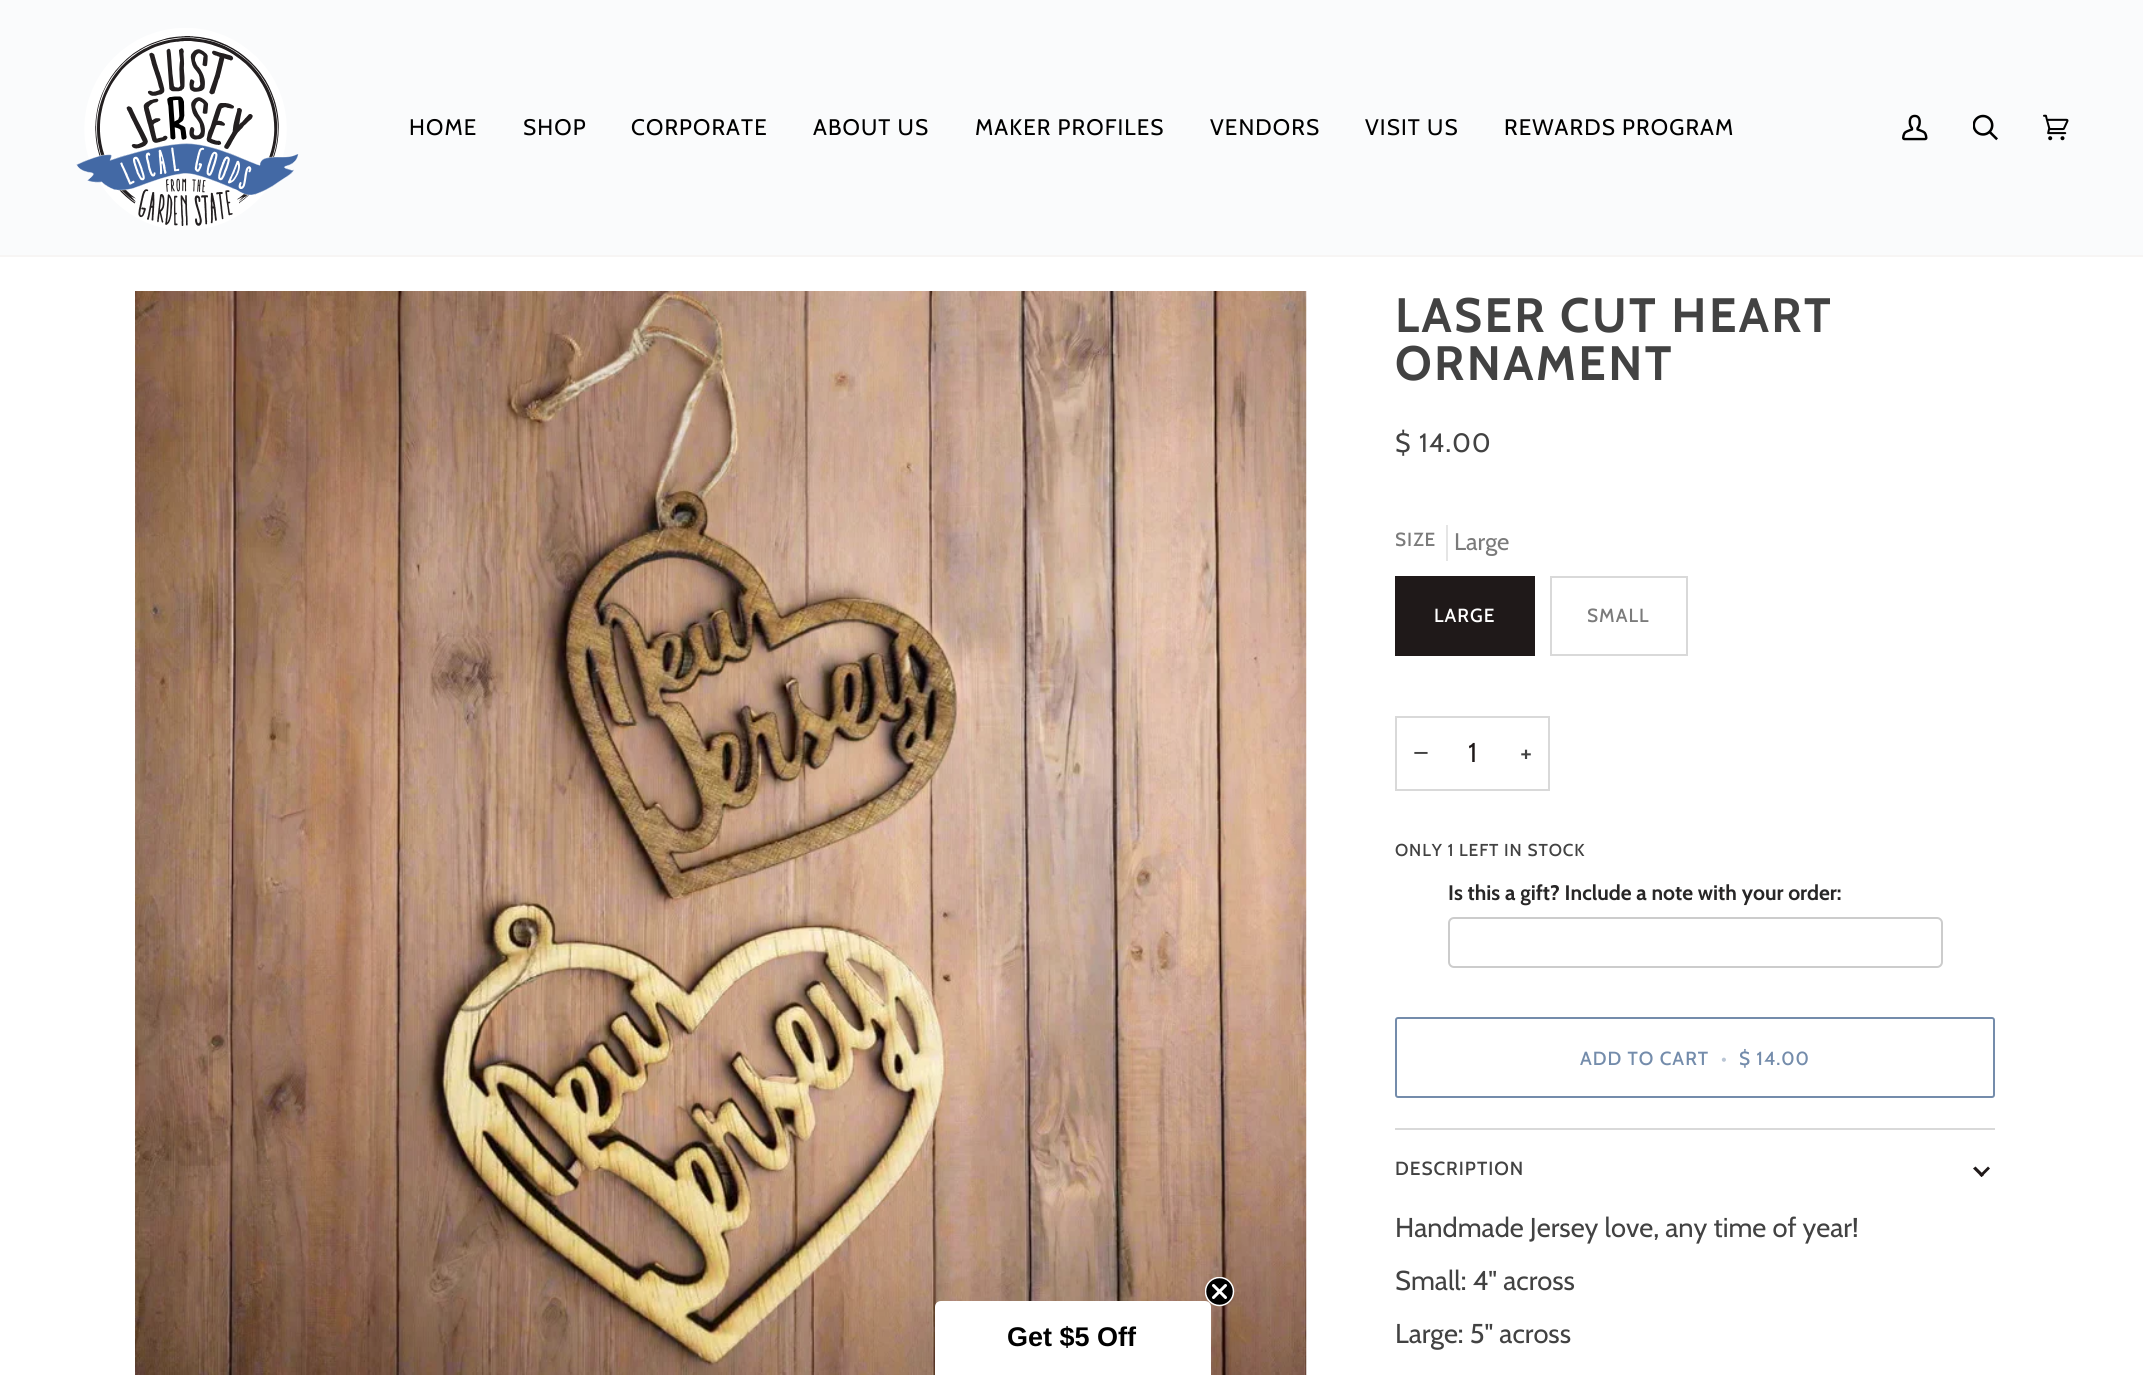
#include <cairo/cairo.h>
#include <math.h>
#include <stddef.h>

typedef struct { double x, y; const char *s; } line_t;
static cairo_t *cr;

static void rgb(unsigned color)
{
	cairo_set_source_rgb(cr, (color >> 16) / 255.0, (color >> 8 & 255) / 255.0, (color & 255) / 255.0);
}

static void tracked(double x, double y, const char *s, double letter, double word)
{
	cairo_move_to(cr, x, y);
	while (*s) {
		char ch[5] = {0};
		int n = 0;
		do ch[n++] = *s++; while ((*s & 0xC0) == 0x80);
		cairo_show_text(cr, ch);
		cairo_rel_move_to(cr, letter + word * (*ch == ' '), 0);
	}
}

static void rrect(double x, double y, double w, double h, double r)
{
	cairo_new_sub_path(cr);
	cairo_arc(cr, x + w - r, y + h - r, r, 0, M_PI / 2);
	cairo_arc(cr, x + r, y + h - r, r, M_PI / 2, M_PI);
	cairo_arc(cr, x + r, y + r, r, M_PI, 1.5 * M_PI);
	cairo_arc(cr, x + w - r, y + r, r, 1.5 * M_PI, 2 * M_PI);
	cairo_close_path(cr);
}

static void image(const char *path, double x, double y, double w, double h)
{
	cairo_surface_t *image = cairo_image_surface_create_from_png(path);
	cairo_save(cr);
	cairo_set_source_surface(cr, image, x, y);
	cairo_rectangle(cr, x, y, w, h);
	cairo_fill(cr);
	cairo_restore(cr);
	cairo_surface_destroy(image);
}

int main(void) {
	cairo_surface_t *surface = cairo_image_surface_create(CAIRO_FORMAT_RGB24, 2143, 1375);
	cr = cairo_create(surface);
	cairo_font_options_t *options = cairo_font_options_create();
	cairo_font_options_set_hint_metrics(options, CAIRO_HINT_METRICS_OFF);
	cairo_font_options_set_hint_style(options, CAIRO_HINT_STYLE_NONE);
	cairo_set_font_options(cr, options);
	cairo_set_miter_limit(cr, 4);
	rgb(0xffffff);
	cairo_paint(cr);
	rgb(0xfafbfc);
	cairo_rectangle(cr, 0, 0, 2143, 255);
	cairo_fill(cr);
	rgb(0xf7f5f4);
	cairo_rectangle(cr, 0, 255, 2143, 2);
	cairo_fill(cr);
	image("img/1.png", 76, 28, 223, 202);
	image("img/2.png", 1902, 114, 26, 27);
	image("img/3.png", 1973, 114, 25, 27);
	image("img/4.png", 2043, 114, 26, 27);
	image("img/5.png", 135, 291, 1172, 1084);
	rgb(0xffffff);
	cairo_new_path(cr);
	cairo_move_to(cr, 941, 1301);
	cairo_line_to(cr, 1205, 1301);
	cairo_curve_to(cr, 1208.5, 1301, 1211, 1303.5, 1211, 1307);
	cairo_line_to(cr, 1211, 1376);
	cairo_line_to(cr, 935, 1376);
	cairo_line_to(cr, 935, 1307);
	cairo_curve_to(cr, 935, 1303.5, 937.5, 1301, 941, 1301);
	cairo_close_path(cr);
	cairo_fill(cr);
	rgb(0x000000);
	cairo_arc(cr, 1219.5, 1291.5, 14, 0, 2 * M_PI);
	cairo_fill(cr);
	cairo_save(cr);
	cairo_rectangle(cr, 1205, 1277, 30, 30);
	cairo_clip(cr);
	cairo_arc(cr, 1219.5, 1291.5, 14, 0, 2 * M_PI);
	rgb(0xffffff);
	cairo_set_line_width(cr, 1.5);
	cairo_stroke(cr);
	cairo_restore(cr);
	cairo_new_path(cr);
	cairo_move_to(cr, 1213.5, 1285.5);
	cairo_line_to(cr, 1225.5, 1297.5);
	cairo_move_to(cr, 1213.5, 1297.5);
	cairo_line_to(cr, 1225.5, 1285.5);
	cairo_close_path(cr);
	rgb(0xffffff);
	cairo_set_line_width(cr, 3);
	cairo_set_line_cap(cr, CAIRO_LINE_CAP_ROUND);
	cairo_set_line_join(cr, CAIRO_LINE_JOIN_ROUND);
	cairo_stroke(cr);
	rgb(0xe5e5e5);
	cairo_rectangle(cr, 1446, 525, 2, 36);
	cairo_fill(cr);
	rgb(0x1f1919);
	cairo_rectangle(cr, 1395, 576, 140, 80);
	cairo_fill(cr);
	cairo_rectangle(cr, 1551, 577, 136, 78);
	rgb(0xd9d9d9);
	cairo_set_line_width(cr, 2);
	cairo_set_line_cap(cr, CAIRO_LINE_CAP_BUTT);
	cairo_set_line_join(cr, CAIRO_LINE_JOIN_MITER);
	cairo_stroke(cr);
	cairo_rectangle(cr, 1396, 717, 153, 73);
	cairo_stroke(cr);
	rrect(1449, 918, 493, 49, 5);
	rgb(0xcccccc);
	cairo_stroke(cr);
	rrect(1396, 1018, 598, 79, 2);
	rgb(0x748cab);
	cairo_stroke(cr);
	rgb(0xd9d9d9);
	cairo_rectangle(cr, 1395, 1128, 600, 2);
	cairo_fill(cr);
	rgb(0x1f1919);
	cairo_new_path(cr);
	cairo_move_to(cr, 1979.5, 1175);
	cairo_line_to(cr, 1988, 1166.5);
	cairo_line_to(cr, 1990, 1168.5);
	cairo_line_to(cr, 1981.5, 1177);
	cairo_close_path(cr);
	cairo_fill(cr);
	cairo_new_path(cr);
	cairo_move_to(cr, 1973, 1168.5);
	cairo_line_to(cr, 1975.5, 1166.5);
	cairo_line_to(cr, 1984, 1175);
	cairo_line_to(cr, 1981.5, 1177);
	cairo_close_path(cr);
	cairo_fill(cr);
	cairo_select_font_face(cr, "Cabin", CAIRO_FONT_SLANT_NORMAL, CAIRO_FONT_WEIGHT_NORMAL);
	cairo_set_font_size(cr, 22.5);
	rgb(0x000000);
	{
		static const line_t items[] = {
			{409, 135, "HOME"},
			{523, 135, "SHOP"},
			{631, 135, "CORPORATE"},
			{813, 135, "ABOUT US"},
			{975, 135, "MAKER PROFILES"},
			{1210, 135, "VENDORS"},
			{1365, 135, "VISIT US"},
			{1504, 135, "REWARDS PROGRAM"},
		};
		for (size_t i = 0; i < sizeof items / sizeof *items; i++) {
			tracked(items[i].x, items[i].y, items[i].s, 1.1, 0);
		}
	}
	cairo_select_font_face(cr, "Liberation Sans", CAIRO_FONT_SLANT_NORMAL, CAIRO_FONT_WEIGHT_BOLD);
	cairo_set_font_size(cr, 27);
	cairo_move_to(cr, 1007, 1346);
	cairo_show_text(cr, "Get $5 Off");
	cairo_select_font_face(cr, "Cabin", CAIRO_FONT_SLANT_NORMAL, CAIRO_FONT_WEIGHT_BOLD);
	cairo_set_font_size(cr, 48.25);
	rgb(0x424242);
	tracked(1395, 332, "LASER CUT HEART", 2.4, 0);
	tracked(1395, 380, "ORNAMENT", 2.4, 0);
	cairo_select_font_face(cr, "Cabin", CAIRO_FONT_SLANT_NORMAL, CAIRO_FONT_WEIGHT_NORMAL);
	cairo_set_font_size(cr, 26.5);
	tracked(1395, 452, "$ 14.00", 1.25, 0);
	cairo_select_font_face(cr, "Cabin Medium", CAIRO_FONT_SLANT_NORMAL, CAIRO_FONT_WEIGHT_NORMAL);
	cairo_set_font_size(cr, 19);
	rgb(0x7b7b7b);
	tracked(1395, 546, "SIZE", 1, 0);
	cairo_select_font_face(cr, "Cabin", CAIRO_FONT_SLANT_NORMAL, CAIRO_FONT_WEIGHT_NORMAL);
	cairo_set_font_size(cr, 24);
	cairo_move_to(cr, 1454, 550);
	cairo_show_text(cr, "Large");
	cairo_select_font_face(cr, "Cabin Medium", CAIRO_FONT_SLANT_NORMAL, CAIRO_FONT_WEIGHT_NORMAL);
	cairo_set_font_size(cr, 19);
	rgb(0xffffff);
	tracked(1434, 622, "LARGE", 1, 0);
	rgb(0x7b7b7b);
	tracked(1587, 622, "SMALL", 1, 0);
	cairo_select_font_face(cr, "Liberation Sans", CAIRO_FONT_SLANT_NORMAL, CAIRO_FONT_WEIGHT_NORMAL);
	cairo_set_font_size(cr, 27.25);
	rgb(0x424242);
	cairo_move_to(cr, 1413, 762);
	cairo_show_text(cr, "−");
	cairo_select_font_face(cr, "Cabin", CAIRO_FONT_SLANT_NORMAL, CAIRO_FONT_WEIGHT_NORMAL);
	rgb(0x1f1919);
	cairo_move_to(cr, 1468, 762);
	cairo_show_text(cr, "1");
	rgb(0x424242);
	cairo_move_to(cr, 1520, 762);
	cairo_show_text(cr, "+");
	cairo_select_font_face(cr, "Cabin Medium", CAIRO_FONT_SLANT_NORMAL, CAIRO_FONT_WEIGHT_NORMAL);
	cairo_set_font_size(cr, 17.25);
	tracked(1395, 856, "ONLY 1 LEFT IN STOCK", 0.9, 0);
	cairo_select_font_face(cr, "Cabin", CAIRO_FONT_SLANT_NORMAL, CAIRO_FONT_WEIGHT_BOLD);
	cairo_set_font_size(cr, 21);
	rgb(0x282727);
	cairo_move_to(cr, 1448, 900);
	cairo_show_text(cr, "Is this a gift? Include a note with your order:");
	cairo_select_font_face(cr, "Cabin Medium", CAIRO_FONT_SLANT_NORMAL, CAIRO_FONT_WEIGHT_NORMAL);
	cairo_set_font_size(cr, 19);
	rgb(0x748cab);
	tracked(1580, 1065, "ADD TO CART", 1, 0);
	rgb(0xbac6d5);
	tracked(1721, 1065, "•", 1, 0);
	rgb(0x748cab);
	tracked(1739, 1065, "$ 14.00", 1, 0);
	rgb(0x424242);
	tracked(1395, 1175, "DESCRIPTION", 1, 0);
	cairo_select_font_face(cr, "Cabin", CAIRO_FONT_SLANT_NORMAL, CAIRO_FONT_WEIGHT_NORMAL);
	cairo_set_font_size(cr, 27.25);
	{
		static const line_t items[] = {
			{1395, 1237, "Handmade Jersey love, any time of year!"},
			{1395, 1290, "Small: 4\" across"},
			{1395, 1343, "Large: 5\" across"},
		};
		for (size_t i = 0; i < sizeof items / sizeof *items; i++) {
			cairo_move_to(cr, items[i].x, items[i].y);
			cairo_show_text(cr, items[i].s);
		}
	}
	cairo_surface_write_to_png(surface, "page.png");
	cairo_font_options_destroy(options);
	cairo_destroy(cr);
	cairo_surface_destroy(surface);
	return 0;
}
